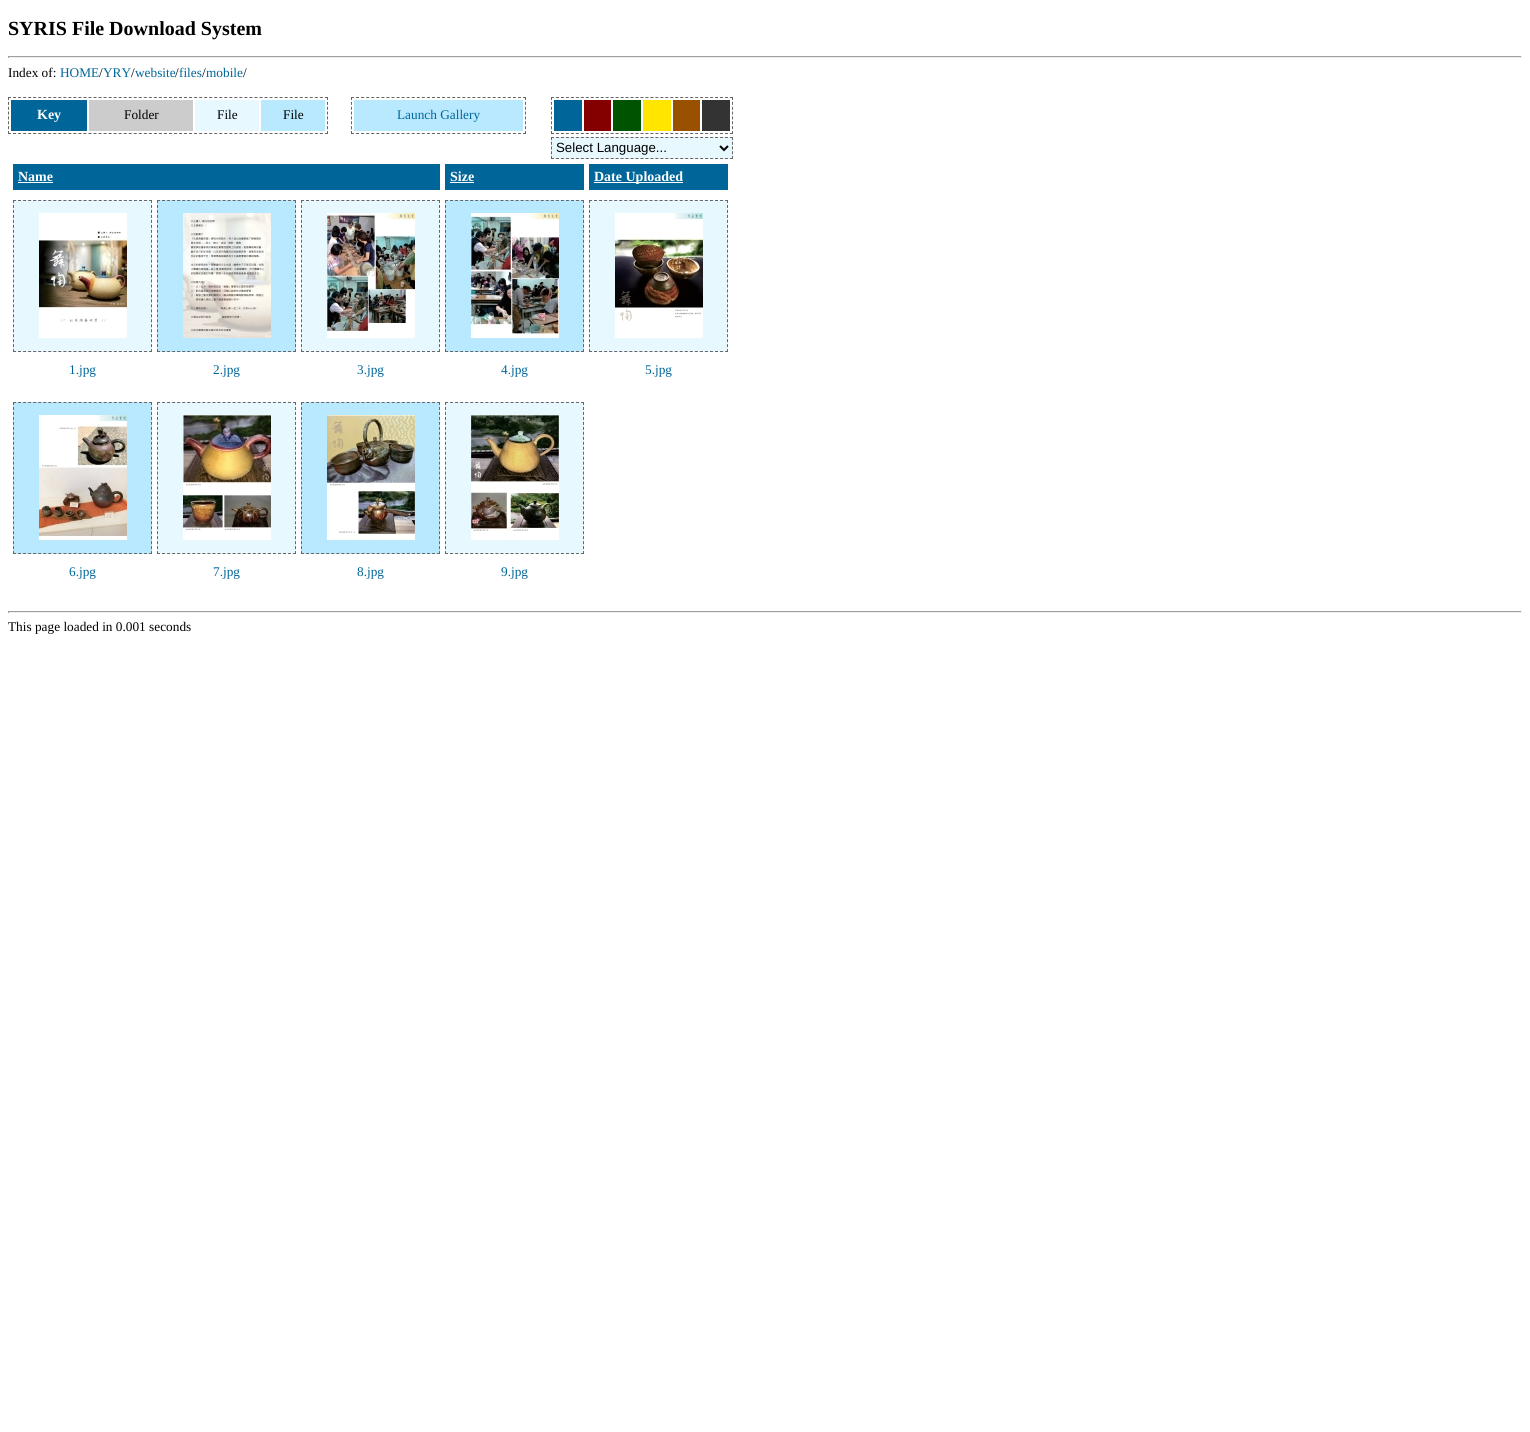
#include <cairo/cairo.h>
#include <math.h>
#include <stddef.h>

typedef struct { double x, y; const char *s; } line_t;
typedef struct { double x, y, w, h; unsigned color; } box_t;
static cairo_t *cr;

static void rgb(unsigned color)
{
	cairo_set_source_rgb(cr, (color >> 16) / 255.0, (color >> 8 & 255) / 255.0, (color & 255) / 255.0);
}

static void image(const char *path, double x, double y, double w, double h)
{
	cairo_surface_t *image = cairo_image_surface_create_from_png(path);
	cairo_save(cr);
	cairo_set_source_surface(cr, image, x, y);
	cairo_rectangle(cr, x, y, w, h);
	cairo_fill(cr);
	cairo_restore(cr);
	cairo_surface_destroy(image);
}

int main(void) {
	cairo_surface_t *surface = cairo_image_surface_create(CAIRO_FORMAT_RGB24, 1530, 1432);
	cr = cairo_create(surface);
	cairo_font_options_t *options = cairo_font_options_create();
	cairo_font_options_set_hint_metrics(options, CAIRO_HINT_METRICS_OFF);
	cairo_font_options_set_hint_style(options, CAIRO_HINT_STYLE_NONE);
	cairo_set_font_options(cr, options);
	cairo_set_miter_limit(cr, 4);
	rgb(0xffffff);
	cairo_paint(cr);
	{
		static const box_t items[] = {
			{8, 56, 1514, 1, 0x9f9f9f},
			{1521, 56, 1, 2, 0xeeeeee},
			{8, 57, 1514, 1, 0xeeeeee},
			{8, 56, 1, 2, 0x9f9f9f},
		};
		for (size_t i = 0; i < sizeof items / sizeof *items; i++) {
			rgb(items[i].color);
			cairo_rectangle(cr, items[i].x, items[i].y, items[i].w, items[i].h);
			cairo_fill(cr);
		}
	}
	cairo_new_path(cr);
	cairo_move_to(cr, 8, 97.5);
	cairo_line_to(cr, 328, 97.5);
	rgb(0x666666);
	cairo_set_line_width(cr, 1);
	cairo_set_dash(cr, (double[]){3, 2.03}, 2, 0);
	cairo_stroke(cr);
	cairo_new_path(cr);
	cairo_move_to(cr, 327.5, 97);
	cairo_line_to(cr, 327.5, 134);
	cairo_set_dash(cr, (double[]){3, 1.86}, 2, 0);
	cairo_stroke(cr);
	cairo_new_path(cr);
	cairo_move_to(cr, 8, 133.5);
	cairo_line_to(cr, 328, 133.5);
	cairo_set_dash(cr, (double[]){3, 2.03}, 2, 0);
	cairo_stroke(cr);
	cairo_new_path(cr);
	cairo_move_to(cr, 8.5, 97);
	cairo_line_to(cr, 8.5, 134);
	cairo_set_dash(cr, (double[]){3, 1.86}, 2, 0);
	cairo_stroke(cr);
	{
		static const box_t items[] = {
			{11, 100, 76, 31, 0x006699},
			{89, 100, 104, 31, 0xcccccc},
			{195, 100, 64, 31, 0xe8f8ff},
			{261, 100, 64, 31, 0xb9e9ff},
		};
		for (size_t i = 0; i < sizeof items / sizeof *items; i++) {
			rgb(items[i].color);
			cairo_rectangle(cr, items[i].x, items[i].y, items[i].w, items[i].h);
			cairo_fill(cr);
		}
	}
	cairo_new_path(cr);
	cairo_move_to(cr, 351, 97.5);
	cairo_line_to(cr, 526, 97.5);
	rgb(0x666666);
	cairo_set_dash(cr, (double[]){3, 2.06}, 2, 0);
	cairo_stroke(cr);
	cairo_new_path(cr);
	cairo_move_to(cr, 525.5, 97);
	cairo_line_to(cr, 525.5, 134);
	cairo_set_dash(cr, (double[]){3, 1.86}, 2, 0);
	cairo_stroke(cr);
	cairo_new_path(cr);
	cairo_move_to(cr, 351, 133.5);
	cairo_line_to(cr, 526, 133.5);
	cairo_set_dash(cr, (double[]){3, 2.06}, 2, 0);
	cairo_stroke(cr);
	cairo_new_path(cr);
	cairo_move_to(cr, 351.5, 97);
	cairo_line_to(cr, 351.5, 134);
	cairo_set_dash(cr, (double[]){3, 1.86}, 2, 0);
	cairo_stroke(cr);
	rgb(0xb9e9ff);
	cairo_rectangle(cr, 354, 100, 169, 31);
	cairo_fill(cr);
	cairo_new_path(cr);
	cairo_move_to(cr, 551, 97.5);
	cairo_line_to(cr, 733, 97.5);
	rgb(0x666666);
	cairo_set_dash(cr, (double[]){3, 1.97}, 2, 0);
	cairo_stroke(cr);
	cairo_new_path(cr);
	cairo_move_to(cr, 732.5, 97);
	cairo_line_to(cr, 732.5, 134);
	cairo_set_dash(cr, (double[]){3, 1.86}, 2, 0);
	cairo_stroke(cr);
	cairo_new_path(cr);
	cairo_move_to(cr, 551, 133.5);
	cairo_line_to(cr, 733, 133.5);
	cairo_set_dash(cr, (double[]){3, 1.97}, 2, 0);
	cairo_stroke(cr);
	cairo_new_path(cr);
	cairo_move_to(cr, 551.5, 97);
	cairo_line_to(cr, 551.5, 134);
	cairo_set_dash(cr, (double[]){3, 1.86}, 2, 0);
	cairo_stroke(cr);
	{
		static const box_t items[] = {
			{554, 100, 28, 31, 0x006699},
			{584, 100, 27, 31, 0x840000},
			{613, 100, 28, 31, 0x005300},
			{643, 100, 28, 31, 0xffe500},
			{673, 100, 27, 31, 0x995100},
			{702, 100, 28, 31, 0x333333},
			{551, 137, 182, 22, 0xe8f8ff},
		};
		for (size_t i = 0; i < sizeof items / sizeof *items; i++) {
			rgb(items[i].color);
			cairo_rectangle(cr, items[i].x, items[i].y, items[i].w, items[i].h);
			cairo_fill(cr);
		}
	}
	cairo_new_path(cr);
	cairo_move_to(cr, 551, 137.5);
	cairo_line_to(cr, 733, 137.5);
	rgb(0x666666);
	cairo_set_dash(cr, (double[]){3, 1.97}, 2, 0);
	cairo_stroke(cr);
	cairo_new_path(cr);
	cairo_move_to(cr, 732.5, 137);
	cairo_line_to(cr, 732.5, 159);
	cairo_set_dash(cr, (double[]){3, 1.75}, 2, 0);
	cairo_stroke(cr);
	cairo_new_path(cr);
	cairo_move_to(cr, 551, 158.5);
	cairo_line_to(cr, 733, 158.5);
	cairo_set_dash(cr, (double[]){3, 1.97}, 2, 0);
	cairo_stroke(cr);
	cairo_new_path(cr);
	cairo_move_to(cr, 551.5, 137);
	cairo_line_to(cr, 551.5, 159);
	cairo_set_dash(cr, (double[]){3, 1.75}, 2, 0);
	cairo_stroke(cr);
	cairo_new_path(cr);
	cairo_move_to(cr, 720, 146);
	cairo_line_to(cr, 724, 150);
	cairo_line_to(cr, 728, 146);
	rgb(0x000000);
	cairo_set_line_width(cr, 2);
	cairo_set_dash(cr, NULL, 0, 0);
	cairo_stroke(cr);
	{
		static const box_t items[] = {
			{13, 164, 427, 26, 0x006699},
			{18, 182, 35, 1, 0xffffff},
			{445, 164, 139, 26, 0x006699},
			{450, 182, 24, 1, 0xffffff},
			{589, 164, 139, 26, 0x006699},
			{594, 182, 89, 1, 0xffffff},
			{13, 200, 139, 152, 0xe8f8ff},
		};
		for (size_t i = 0; i < sizeof items / sizeof *items; i++) {
			rgb(items[i].color);
			cairo_rectangle(cr, items[i].x, items[i].y, items[i].w, items[i].h);
			cairo_fill(cr);
		}
	}
	cairo_new_path(cr);
	cairo_move_to(cr, 13, 200.5);
	cairo_line_to(cr, 152, 200.5);
	rgb(0x666666);
	cairo_set_line_width(cr, 1);
	cairo_set_dash(cr, (double[]){3, 2.04}, 2, 0);
	cairo_stroke(cr);
	cairo_new_path(cr);
	cairo_move_to(cr, 151.5, 200);
	cairo_line_to(cr, 151.5, 352);
	cairo_set_dash(cr, (double[]){3, 1.97}, 2, 0);
	cairo_stroke(cr);
	cairo_new_path(cr);
	cairo_move_to(cr, 13, 351.5);
	cairo_line_to(cr, 152, 351.5);
	cairo_set_dash(cr, (double[]){3, 2.04}, 2, 0);
	cairo_stroke(cr);
	cairo_new_path(cr);
	cairo_move_to(cr, 13.5, 200);
	cairo_line_to(cr, 13.5, 352);
	cairo_set_dash(cr, (double[]){3, 1.97}, 2, 0);
	cairo_stroke(cr);
	image("img/1.png", 39, 213, 88, 125);
	rgb(0xb9e9ff);
	cairo_rectangle(cr, 157, 200, 139, 152);
	cairo_fill(cr);
	cairo_new_path(cr);
	cairo_move_to(cr, 157, 200.5);
	cairo_line_to(cr, 296, 200.5);
	rgb(0x666666);
	cairo_set_dash(cr, (double[]){3, 2.04}, 2, 0);
	cairo_stroke(cr);
	cairo_new_path(cr);
	cairo_move_to(cr, 295.5, 200);
	cairo_line_to(cr, 295.5, 352);
	cairo_set_dash(cr, (double[]){3, 1.97}, 2, 0);
	cairo_stroke(cr);
	cairo_new_path(cr);
	cairo_move_to(cr, 157, 351.5);
	cairo_line_to(cr, 296, 351.5);
	cairo_set_dash(cr, (double[]){3, 2.04}, 2, 0);
	cairo_stroke(cr);
	cairo_new_path(cr);
	cairo_move_to(cr, 157.5, 200);
	cairo_line_to(cr, 157.5, 352);
	cairo_set_dash(cr, (double[]){3, 1.97}, 2, 0);
	cairo_stroke(cr);
	image("img/2.png", 183, 213, 88, 125);
	rgb(0xe8f8ff);
	cairo_rectangle(cr, 301, 200, 139, 152);
	cairo_fill(cr);
	cairo_new_path(cr);
	cairo_move_to(cr, 301, 200.5);
	cairo_line_to(cr, 440, 200.5);
	rgb(0x666666);
	cairo_set_dash(cr, (double[]){3, 2.04}, 2, 0);
	cairo_stroke(cr);
	cairo_new_path(cr);
	cairo_move_to(cr, 439.5, 200);
	cairo_line_to(cr, 439.5, 352);
	cairo_set_dash(cr, (double[]){3, 1.97}, 2, 0);
	cairo_stroke(cr);
	cairo_new_path(cr);
	cairo_move_to(cr, 301, 351.5);
	cairo_line_to(cr, 440, 351.5);
	cairo_set_dash(cr, (double[]){3, 2.04}, 2, 0);
	cairo_stroke(cr);
	cairo_new_path(cr);
	cairo_move_to(cr, 301.5, 200);
	cairo_line_to(cr, 301.5, 352);
	cairo_set_dash(cr, (double[]){3, 1.97}, 2, 0);
	cairo_stroke(cr);
	image("img/3.png", 327, 213, 88, 125);
	rgb(0xb9e9ff);
	cairo_rectangle(cr, 445, 200, 139, 152);
	cairo_fill(cr);
	cairo_new_path(cr);
	cairo_move_to(cr, 445, 200.5);
	cairo_line_to(cr, 584, 200.5);
	rgb(0x666666);
	cairo_set_dash(cr, (double[]){3, 2.04}, 2, 0);
	cairo_stroke(cr);
	cairo_new_path(cr);
	cairo_move_to(cr, 583.5, 200);
	cairo_line_to(cr, 583.5, 352);
	cairo_set_dash(cr, (double[]){3, 1.97}, 2, 0);
	cairo_stroke(cr);
	cairo_new_path(cr);
	cairo_move_to(cr, 445, 351.5);
	cairo_line_to(cr, 584, 351.5);
	cairo_set_dash(cr, (double[]){3, 2.04}, 2, 0);
	cairo_stroke(cr);
	cairo_new_path(cr);
	cairo_move_to(cr, 445.5, 200);
	cairo_line_to(cr, 445.5, 352);
	cairo_set_dash(cr, (double[]){3, 1.97}, 2, 0);
	cairo_stroke(cr);
	image("img/4.png", 471, 213, 88, 125);
	rgb(0xe8f8ff);
	cairo_rectangle(cr, 589, 200, 139, 152);
	cairo_fill(cr);
	cairo_new_path(cr);
	cairo_move_to(cr, 589, 200.5);
	cairo_line_to(cr, 728, 200.5);
	rgb(0x666666);
	cairo_set_dash(cr, (double[]){3, 2.04}, 2, 0);
	cairo_stroke(cr);
	cairo_new_path(cr);
	cairo_move_to(cr, 727.5, 200);
	cairo_line_to(cr, 727.5, 352);
	cairo_set_dash(cr, (double[]){3, 1.97}, 2, 0);
	cairo_stroke(cr);
	cairo_new_path(cr);
	cairo_move_to(cr, 589, 351.5);
	cairo_line_to(cr, 728, 351.5);
	cairo_set_dash(cr, (double[]){3, 2.04}, 2, 0);
	cairo_stroke(cr);
	cairo_new_path(cr);
	cairo_move_to(cr, 589.5, 200);
	cairo_line_to(cr, 589.5, 352);
	cairo_set_dash(cr, (double[]){3, 1.97}, 2, 0);
	cairo_stroke(cr);
	image("img/5.png", 615, 213, 88, 125);
	rgb(0xb9e9ff);
	cairo_rectangle(cr, 13, 402, 139, 152);
	cairo_fill(cr);
	cairo_new_path(cr);
	cairo_move_to(cr, 13, 402.5);
	cairo_line_to(cr, 152, 402.5);
	rgb(0x666666);
	cairo_set_dash(cr, (double[]){3, 2.04}, 2, 0);
	cairo_stroke(cr);
	cairo_new_path(cr);
	cairo_move_to(cr, 151.5, 402);
	cairo_line_to(cr, 151.5, 554);
	cairo_set_dash(cr, (double[]){3, 1.97}, 2, 0);
	cairo_stroke(cr);
	cairo_new_path(cr);
	cairo_move_to(cr, 13, 553.5);
	cairo_line_to(cr, 152, 553.5);
	cairo_set_dash(cr, (double[]){3, 2.04}, 2, 0);
	cairo_stroke(cr);
	cairo_new_path(cr);
	cairo_move_to(cr, 13.5, 402);
	cairo_line_to(cr, 13.5, 554);
	cairo_set_dash(cr, (double[]){3, 1.97}, 2, 0);
	cairo_stroke(cr);
	image("img/6.png", 39, 415, 88, 125);
	rgb(0xe8f8ff);
	cairo_rectangle(cr, 157, 402, 139, 152);
	cairo_fill(cr);
	cairo_new_path(cr);
	cairo_move_to(cr, 157, 402.5);
	cairo_line_to(cr, 296, 402.5);
	rgb(0x666666);
	cairo_set_dash(cr, (double[]){3, 2.04}, 2, 0);
	cairo_stroke(cr);
	cairo_new_path(cr);
	cairo_move_to(cr, 295.5, 402);
	cairo_line_to(cr, 295.5, 554);
	cairo_set_dash(cr, (double[]){3, 1.97}, 2, 0);
	cairo_stroke(cr);
	cairo_new_path(cr);
	cairo_move_to(cr, 157, 553.5);
	cairo_line_to(cr, 296, 553.5);
	cairo_set_dash(cr, (double[]){3, 2.04}, 2, 0);
	cairo_stroke(cr);
	cairo_new_path(cr);
	cairo_move_to(cr, 157.5, 402);
	cairo_line_to(cr, 157.5, 554);
	cairo_set_dash(cr, (double[]){3, 1.97}, 2, 0);
	cairo_stroke(cr);
	image("img/7.png", 183, 415, 88, 125);
	rgb(0xb9e9ff);
	cairo_rectangle(cr, 301, 402, 139, 152);
	cairo_fill(cr);
	cairo_new_path(cr);
	cairo_move_to(cr, 301, 402.5);
	cairo_line_to(cr, 440, 402.5);
	rgb(0x666666);
	cairo_set_dash(cr, (double[]){3, 2.04}, 2, 0);
	cairo_stroke(cr);
	cairo_new_path(cr);
	cairo_move_to(cr, 439.5, 402);
	cairo_line_to(cr, 439.5, 554);
	cairo_set_dash(cr, (double[]){3, 1.97}, 2, 0);
	cairo_stroke(cr);
	cairo_new_path(cr);
	cairo_move_to(cr, 301, 553.5);
	cairo_line_to(cr, 440, 553.5);
	cairo_set_dash(cr, (double[]){3, 2.04}, 2, 0);
	cairo_stroke(cr);
	cairo_new_path(cr);
	cairo_move_to(cr, 301.5, 402);
	cairo_line_to(cr, 301.5, 554);
	cairo_set_dash(cr, (double[]){3, 1.97}, 2, 0);
	cairo_stroke(cr);
	image("img/8.png", 327, 415, 88, 125);
	rgb(0xe8f8ff);
	cairo_rectangle(cr, 445, 402, 139, 152);
	cairo_fill(cr);
	cairo_new_path(cr);
	cairo_move_to(cr, 445, 402.5);
	cairo_line_to(cr, 584, 402.5);
	rgb(0x666666);
	cairo_set_dash(cr, (double[]){3, 2.04}, 2, 0);
	cairo_stroke(cr);
	cairo_new_path(cr);
	cairo_move_to(cr, 583.5, 402);
	cairo_line_to(cr, 583.5, 554);
	cairo_set_dash(cr, (double[]){3, 1.97}, 2, 0);
	cairo_stroke(cr);
	cairo_new_path(cr);
	cairo_move_to(cr, 445, 553.5);
	cairo_line_to(cr, 584, 553.5);
	cairo_set_dash(cr, (double[]){3, 2.04}, 2, 0);
	cairo_stroke(cr);
	cairo_new_path(cr);
	cairo_move_to(cr, 445.5, 402);
	cairo_line_to(cr, 445.5, 554);
	cairo_set_dash(cr, (double[]){3, 1.97}, 2, 0);
	cairo_stroke(cr);
	image("img/9.png", 471, 415, 88, 125);
	{
		static const box_t items[] = {
			{8, 611, 1514, 1, 0x9f9f9f},
			{1521, 611, 1, 2, 0xeeeeee},
			{8, 612, 1514, 1, 0xeeeeee},
			{8, 611, 1, 2, 0x9f9f9f},
		};
		for (size_t i = 0; i < sizeof items / sizeof *items; i++) {
			rgb(items[i].color);
			cairo_rectangle(cr, items[i].x, items[i].y, items[i].w, items[i].h);
			cairo_fill(cr);
		}
	}
	cairo_select_font_face(cr, "Liberation Serif", CAIRO_FONT_SLANT_NORMAL, CAIRO_FONT_WEIGHT_BOLD);
	cairo_set_font_size(cr, 20);
	rgb(0x000000);
	cairo_move_to(cr, 8, 35);
	cairo_show_text(cr, "SYRIS File Download System");
	cairo_select_font_face(cr, "Liberation Serif", CAIRO_FONT_SLANT_NORMAL, CAIRO_FONT_WEIGHT_NORMAL);
	cairo_set_font_size(cr, 13.3);
	cairo_move_to(cr, 8, 77);
	cairo_show_text(cr, "Index of:");
	rgb(0x006699);
	cairo_move_to(cr, 60, 77);
	cairo_show_text(cr, "HOME");
	rgb(0x000000);
	cairo_move_to(cr, 99, 77);
	cairo_show_text(cr, "/");
	rgb(0x006699);
	cairo_move_to(cr, 103, 77);
	cairo_show_text(cr, "YRY");
	rgb(0x000000);
	cairo_move_to(cr, 131, 77);
	cairo_show_text(cr, "/");
	rgb(0x006699);
	cairo_move_to(cr, 135, 77);
	cairo_show_text(cr, "website");
	rgb(0x000000);
	cairo_move_to(cr, 175, 77);
	cairo_show_text(cr, "/");
	rgb(0x006699);
	cairo_move_to(cr, 179, 77);
	cairo_show_text(cr, "files");
	rgb(0x000000);
	cairo_move_to(cr, 202, 77);
	cairo_show_text(cr, "/");
	rgb(0x006699);
	cairo_move_to(cr, 206, 77);
	cairo_show_text(cr, "mobile");
	rgb(0x000000);
	cairo_move_to(cr, 243, 77);
	cairo_show_text(cr, "/");
	cairo_select_font_face(cr, "Liberation Serif", CAIRO_FONT_SLANT_NORMAL, CAIRO_FONT_WEIGHT_BOLD);
	cairo_set_font_size(cr, 14);
	rgb(0xffffff);
	cairo_move_to(cr, 37, 119);
	cairo_show_text(cr, "Key");
	cairo_select_font_face(cr, "Liberation Serif", CAIRO_FONT_SLANT_NORMAL, CAIRO_FONT_WEIGHT_NORMAL);
	cairo_set_font_size(cr, 13.3);
	rgb(0x000000);
	{
		static const line_t items[] = {
			{124, 119, "Folder"},
			{217, 119, "File"},
			{283, 119, "File"},
		};
		for (size_t i = 0; i < sizeof items / sizeof *items; i++) {
			cairo_move_to(cr, items[i].x, items[i].y);
			cairo_show_text(cr, items[i].s);
		}
	}
	rgb(0x006699);
	cairo_move_to(cr, 397, 119);
	cairo_show_text(cr, "Launch Gallery");
	cairo_select_font_face(cr, "Liberation Sans", CAIRO_FONT_SLANT_NORMAL, CAIRO_FONT_WEIGHT_NORMAL);
	rgb(0x000000);
	cairo_move_to(cr, 556, 152);
	cairo_show_text(cr, "Select Language...");
	cairo_select_font_face(cr, "Liberation Serif", CAIRO_FONT_SLANT_NORMAL, CAIRO_FONT_WEIGHT_BOLD);
	cairo_set_font_size(cr, 14);
	rgb(0xffffff);
	{
		static const line_t items[] = {
			{18, 181, "Name"},
			{450, 181, "Size"},
			{594, 181, "Date Uploaded"},
		};
		for (size_t i = 0; i < sizeof items / sizeof *items; i++) {
			cairo_move_to(cr, items[i].x, items[i].y);
			cairo_show_text(cr, items[i].s);
		}
	}
	cairo_select_font_face(cr, "Liberation Serif", CAIRO_FONT_SLANT_NORMAL, CAIRO_FONT_WEIGHT_NORMAL);
	cairo_set_font_size(cr, 13.3);
	rgb(0x006699);
	{
		static const line_t items[] = {
			{69, 374, "1.jpg"},
			{213, 374, "2.jpg"},
			{357, 374, "3.jpg"},
			{501, 374, "4.jpg"},
			{645, 374, "5.jpg"},
			{69, 576, "6.jpg"},
			{213, 576, "7.jpg"},
			{357, 576, "8.jpg"},
			{501, 576, "9.jpg"},
		};
		for (size_t i = 0; i < sizeof items / sizeof *items; i++) {
			cairo_move_to(cr, items[i].x, items[i].y);
			cairo_show_text(cr, items[i].s);
		}
	}
	rgb(0x000000);
	cairo_move_to(cr, 8, 631);
	cairo_show_text(cr, "This page loaded in 0.001 seconds");
	cairo_surface_write_to_png(surface, "page.png");
	cairo_font_options_destroy(options);
	cairo_destroy(cr);
	cairo_surface_destroy(surface);
	return 0;
}
